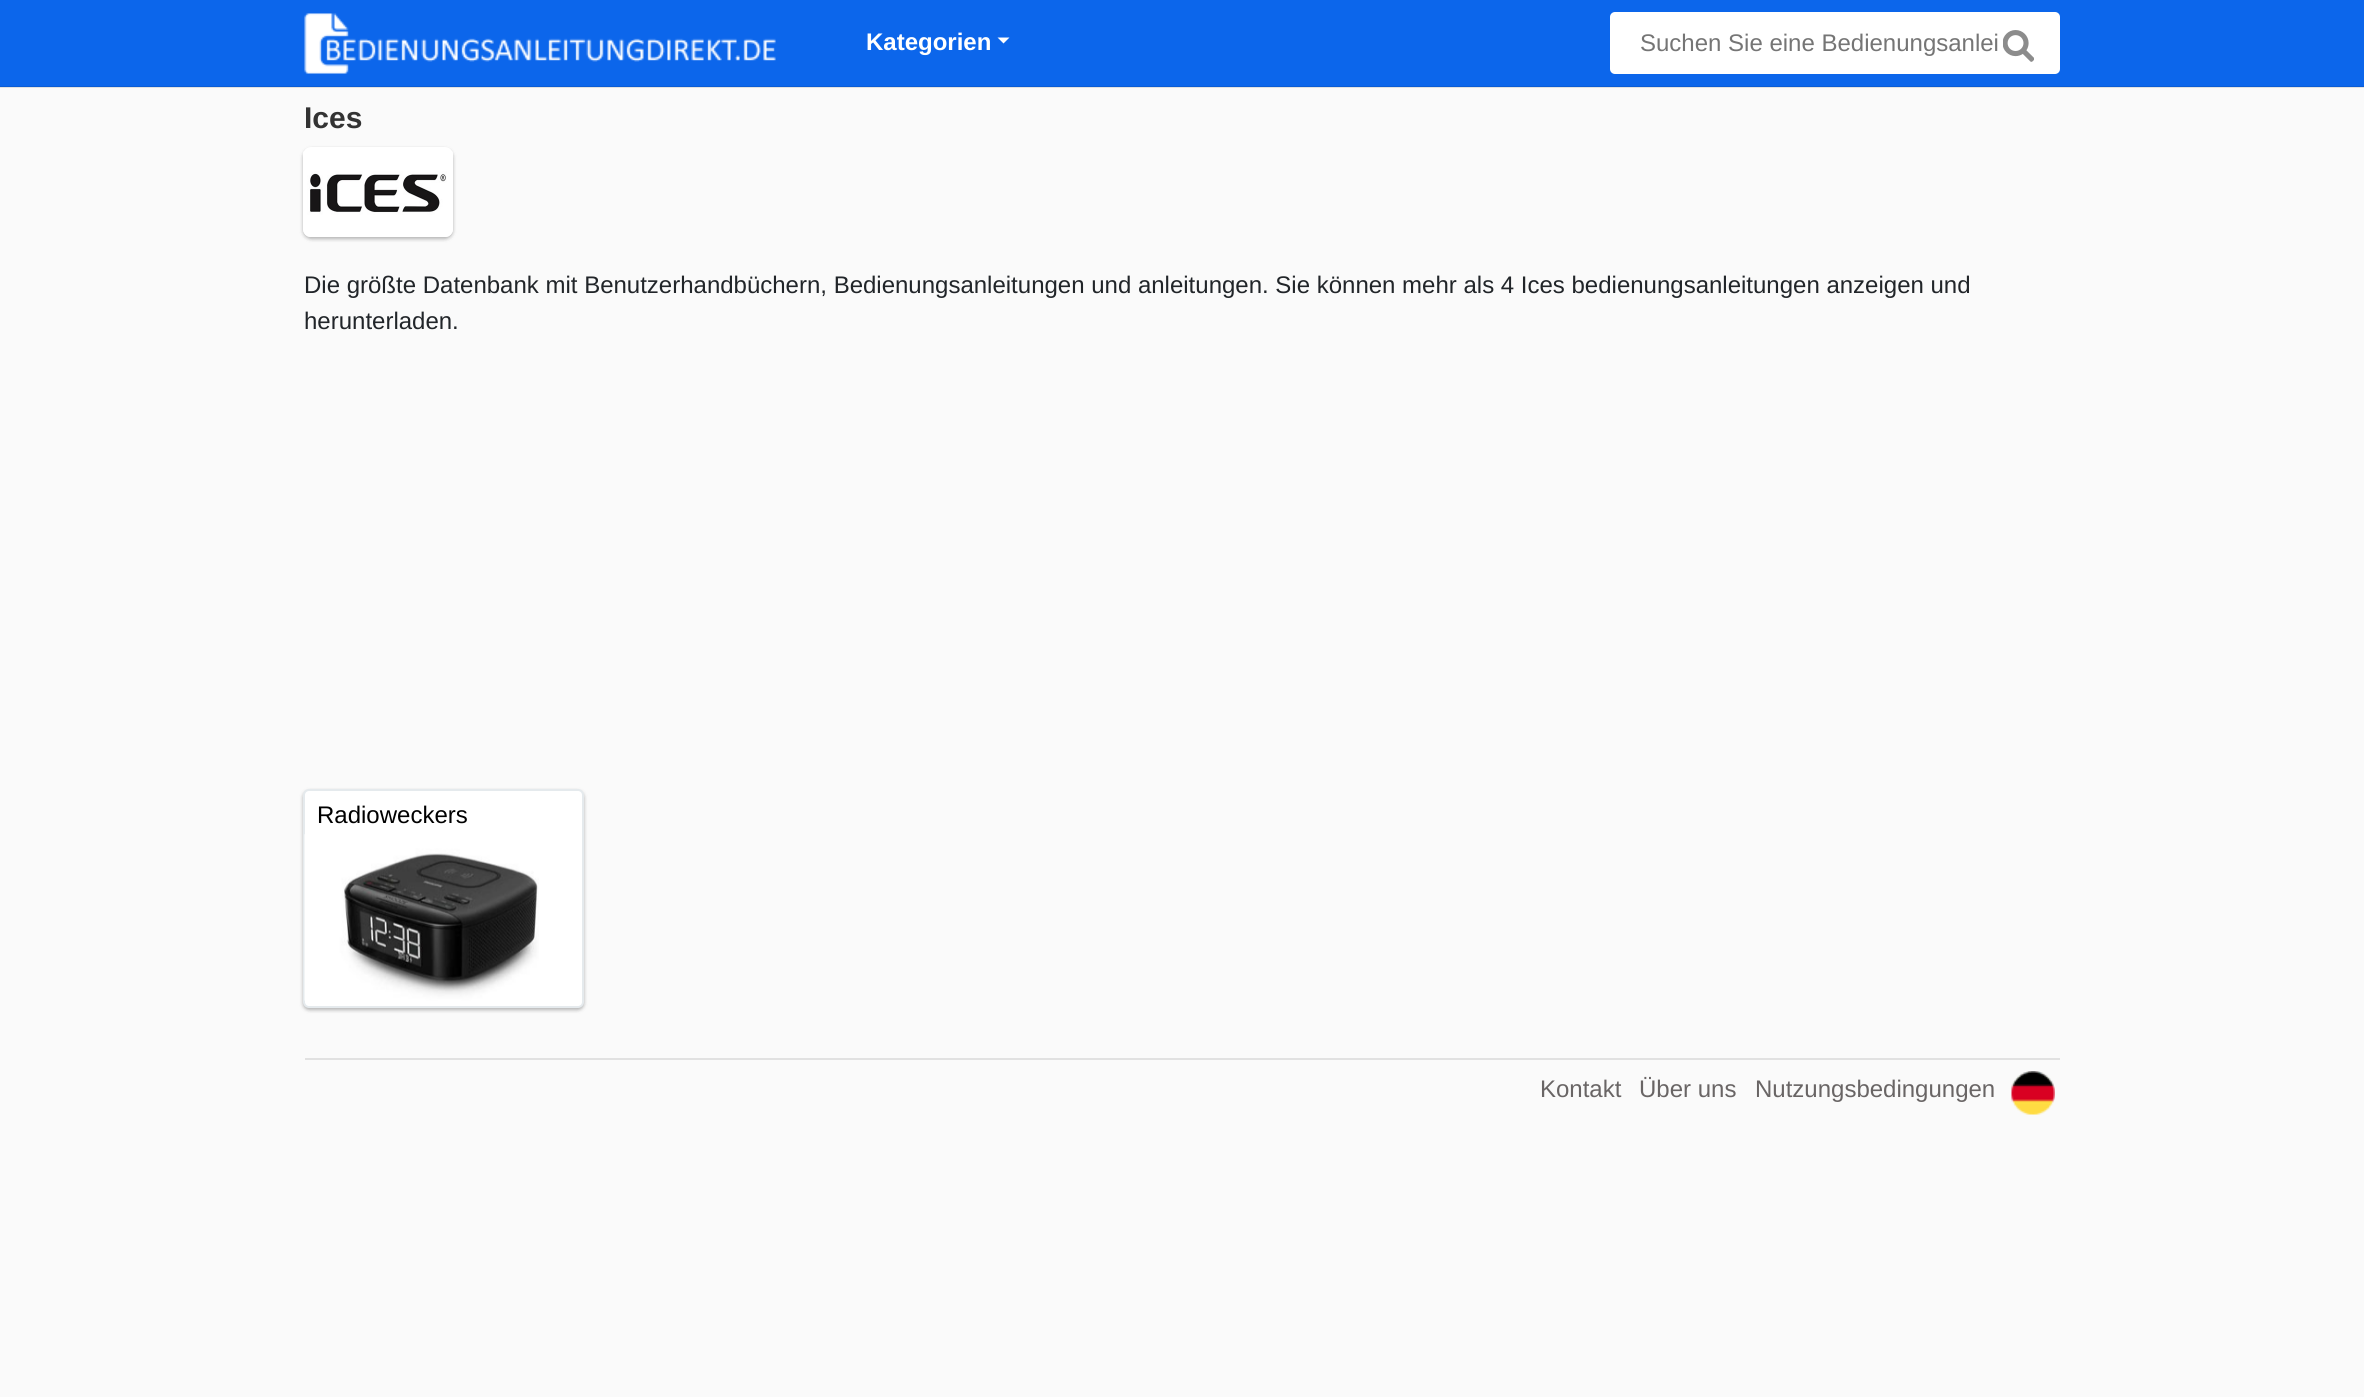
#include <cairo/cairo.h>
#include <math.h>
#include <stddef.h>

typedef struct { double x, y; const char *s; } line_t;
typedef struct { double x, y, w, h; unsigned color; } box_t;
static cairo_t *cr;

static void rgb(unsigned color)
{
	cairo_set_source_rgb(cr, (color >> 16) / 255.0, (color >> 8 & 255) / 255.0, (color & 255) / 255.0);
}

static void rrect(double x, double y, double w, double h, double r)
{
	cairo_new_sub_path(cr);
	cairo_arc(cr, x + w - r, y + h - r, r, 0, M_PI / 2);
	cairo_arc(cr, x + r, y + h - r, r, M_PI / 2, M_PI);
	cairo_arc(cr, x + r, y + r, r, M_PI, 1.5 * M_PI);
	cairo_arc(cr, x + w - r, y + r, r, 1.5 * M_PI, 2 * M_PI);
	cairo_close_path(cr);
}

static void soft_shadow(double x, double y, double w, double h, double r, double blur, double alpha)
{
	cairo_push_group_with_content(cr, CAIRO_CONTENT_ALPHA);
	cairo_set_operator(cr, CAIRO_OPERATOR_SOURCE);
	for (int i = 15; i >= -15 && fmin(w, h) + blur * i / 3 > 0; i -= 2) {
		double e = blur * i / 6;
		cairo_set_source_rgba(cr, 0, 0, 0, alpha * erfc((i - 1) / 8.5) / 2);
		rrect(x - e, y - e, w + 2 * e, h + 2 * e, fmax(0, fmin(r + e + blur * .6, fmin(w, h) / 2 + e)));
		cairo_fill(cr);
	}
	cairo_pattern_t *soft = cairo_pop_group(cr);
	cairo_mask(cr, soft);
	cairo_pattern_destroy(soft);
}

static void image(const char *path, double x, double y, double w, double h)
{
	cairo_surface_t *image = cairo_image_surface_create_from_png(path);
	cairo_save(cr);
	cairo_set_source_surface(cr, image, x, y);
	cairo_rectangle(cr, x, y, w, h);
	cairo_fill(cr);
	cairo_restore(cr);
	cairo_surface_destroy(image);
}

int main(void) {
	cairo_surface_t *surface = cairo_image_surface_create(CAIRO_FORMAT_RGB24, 2364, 1397);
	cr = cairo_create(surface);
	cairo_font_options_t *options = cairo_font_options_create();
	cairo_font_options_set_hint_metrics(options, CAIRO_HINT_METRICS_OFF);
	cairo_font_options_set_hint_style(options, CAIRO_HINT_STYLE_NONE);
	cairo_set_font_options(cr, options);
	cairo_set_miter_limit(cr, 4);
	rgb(0xfafafa);
	cairo_paint(cr);
	{
		static const box_t items[] = {
			{0, 87, 2364, 1, 0xe1e1e1},
			{0, 0, 2364, 86, 0x0c66eb},
			{0, 86, 2364, 1, 0x0b5cd4},
		};
		for (size_t i = 0; i < sizeof items / sizeof *items; i++) {
			rgb(items[i].color);
			cairo_rectangle(cr, items[i].x, items[i].y, items[i].w, items[i].h);
			cairo_fill(cr);
		}
	}
	image("img/1.png", 304, 13, 472, 61);
	rgb(0xffffff);
	cairo_new_path(cr);
	cairo_move_to(cr, 997.5, 37.5);
	cairo_line_to(cr, 1009.5, 37.5);
	cairo_line_to(cr, 1003.5, 43.5);
	cairo_close_path(cr);
	cairo_fill(cr);
	rrect(1610, 12, 450, 62, 5);
	cairo_fill(cr);
	image("img/2.png", 2003, 30, 31, 32);
	rgb(0x000000);
	soft_shadow(303, 149, 150, 90, 8, 1.5, 0.1);
	soft_shadow(303, 149, 150, 90, 8, 2, 0.2);
	rgb(0xffffff);
	rrect(303, 147, 150, 90, 8);
	cairo_fill(cr);
	image("img/3.png", 303, 151, 150, 86);
	rgb(0x000000);
	soft_shadow(303, 791, 281, 219, 6, 1.5, 0.1);
	soft_shadow(303, 791, 281, 219, 6, 2, 0.2);
	rgb(0xffffff);
	rrect(304, 790, 279, 217, 5);
	cairo_fill_preserve(cr);
	rgb(0xe5eaed);
	cairo_stroke(cr);
	image("img/4.png", 304, 834, 235, 167);
	rgb(0xe1e1e1);
	cairo_rectangle(cr, 305, 1058, 1755, 2);
	cairo_fill(cr);
	image("img/5.png", 2011, 1071, 44, 44);
	cairo_select_font_face(cr, "Liberation Sans", CAIRO_FONT_SLANT_NORMAL, CAIRO_FONT_WEIGHT_BOLD);
	cairo_set_font_size(cr, 24);
	rgb(0xffffff);
	cairo_move_to(cr, 866, 50);
	cairo_show_text(cr, "Kategorien");
	cairo_select_font_face(cr, "Liberation Sans", CAIRO_FONT_SLANT_NORMAL, CAIRO_FONT_WEIGHT_NORMAL);
	rgb(0x757575);
	cairo_move_to(cr, 1640, 51);
	cairo_show_text(cr, "Suchen Sie eine Bedienungsanlei");
	cairo_select_font_face(cr, "Liberation Sans", CAIRO_FONT_SLANT_NORMAL, CAIRO_FONT_WEIGHT_BOLD);
	cairo_set_font_size(cr, 30);
	rgb(0x333333);
	cairo_move_to(cr, 304, 128);
	cairo_show_text(cr, "Ices");
	cairo_select_font_face(cr, "Liberation Sans", CAIRO_FONT_SLANT_NORMAL, CAIRO_FONT_WEIGHT_NORMAL);
	cairo_set_font_size(cr, 24);
	rgb(0x212529);
	cairo_move_to(cr, 304, 293);
	cairo_show_text(cr, "Die größte Datenbank mit Benutzerhandbüchern, Bedienungsanleitungen und anleitungen. Sie können mehr als 4 Ices bedienungsanleitungen anzeigen und");
	cairo_move_to(cr, 304, 329);
	cairo_show_text(cr, "herunterladen.");
	rgb(0x000000);
	cairo_move_to(cr, 317, 823);
	cairo_show_text(cr, "Radioweckers");
	rgb(0x696565);
	{
		static const line_t items[] = {
			{1540, 1097, "Kontakt"},
			{1639, 1097, "Über uns"},
			{1755, 1097, "Nutzungsbedingungen"},
		};
		for (size_t i = 0; i < sizeof items / sizeof *items; i++) {
			cairo_move_to(cr, items[i].x, items[i].y);
			cairo_show_text(cr, items[i].s);
		}
	}
	cairo_surface_write_to_png(surface, "page.png");
	cairo_font_options_destroy(options);
	cairo_destroy(cr);
	cairo_surface_destroy(surface);
	return 0;
}
